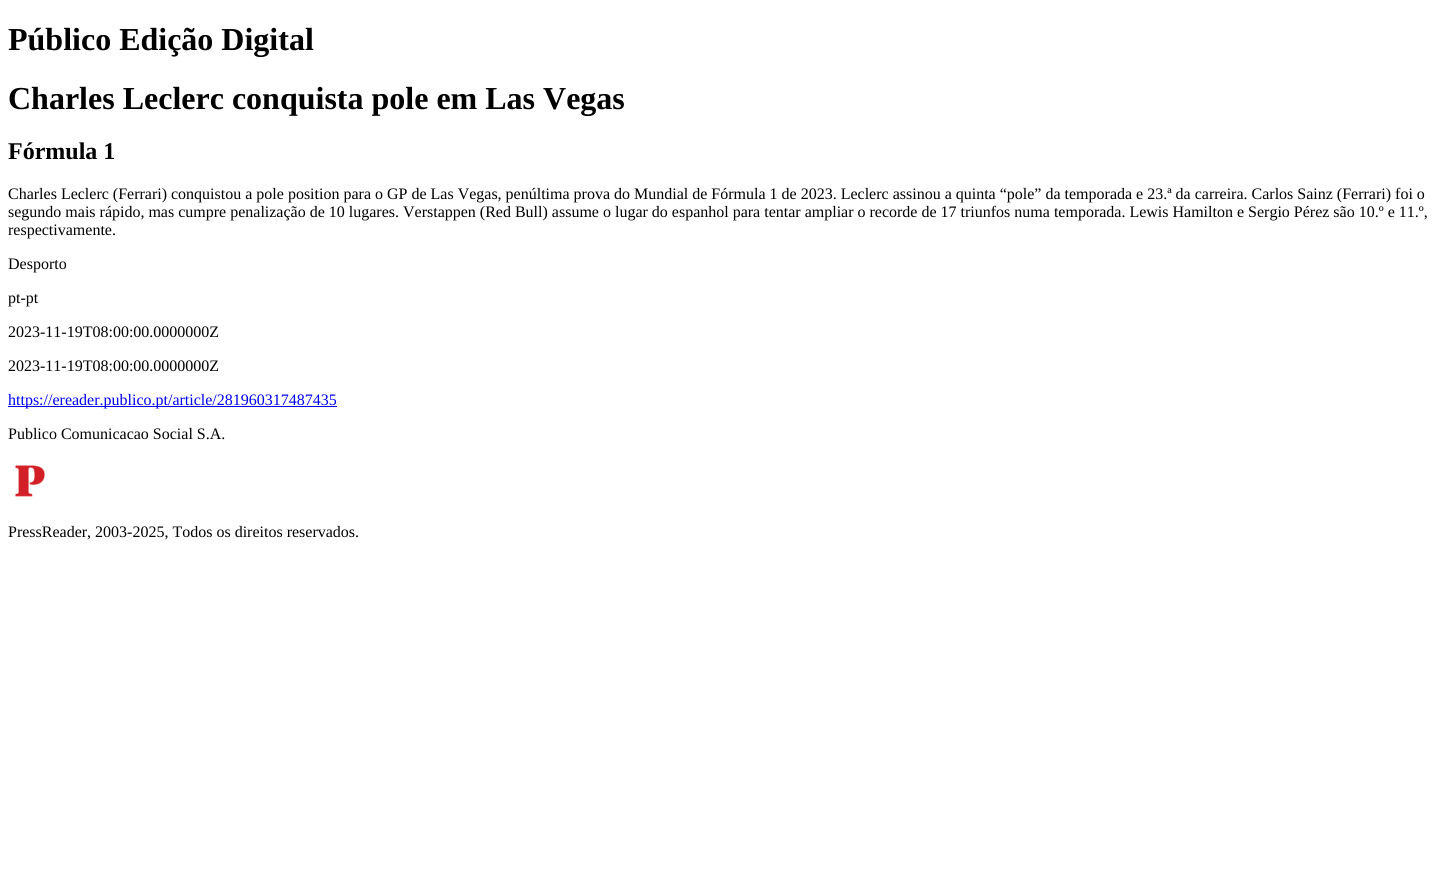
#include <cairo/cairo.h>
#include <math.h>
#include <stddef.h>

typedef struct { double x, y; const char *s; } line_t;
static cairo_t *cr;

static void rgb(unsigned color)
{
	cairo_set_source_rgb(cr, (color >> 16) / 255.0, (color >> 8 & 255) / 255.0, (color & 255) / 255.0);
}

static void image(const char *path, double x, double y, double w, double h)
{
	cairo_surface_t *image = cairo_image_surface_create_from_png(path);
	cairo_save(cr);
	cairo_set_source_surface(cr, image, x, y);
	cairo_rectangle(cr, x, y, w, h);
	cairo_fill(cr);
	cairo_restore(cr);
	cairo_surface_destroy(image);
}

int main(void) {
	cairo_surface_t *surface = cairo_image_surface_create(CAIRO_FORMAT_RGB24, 1444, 882);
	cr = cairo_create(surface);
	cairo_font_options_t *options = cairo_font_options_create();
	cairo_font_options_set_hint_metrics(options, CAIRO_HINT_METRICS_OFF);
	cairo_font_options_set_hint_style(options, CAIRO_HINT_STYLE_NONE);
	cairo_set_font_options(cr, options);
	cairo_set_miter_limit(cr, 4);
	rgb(0xffffff);
	cairo_paint(cr);
	rgb(0x0000ee);
	cairo_rectangle(cr, 8, 406, 329, 1);
	cairo_fill(cr);
	image("img/1.png", 15, 465, 30, 32);
	cairo_select_font_face(cr, "Liberation Serif", CAIRO_FONT_SLANT_NORMAL, CAIRO_FONT_WEIGHT_BOLD);
	cairo_set_font_size(cr, 32);
	rgb(0x000000);
	cairo_move_to(cr, 8, 50);
	cairo_show_text(cr, "Público Edição Digital");
	cairo_move_to(cr, 8, 109);
	cairo_show_text(cr, "Charles Leclerc conquista pole em Las Vegas");
	cairo_set_font_size(cr, 24);
	cairo_move_to(cr, 8, 159);
	cairo_show_text(cr, "Fórmula 1");
	cairo_select_font_face(cr, "Liberation Serif", CAIRO_FONT_SLANT_NORMAL, CAIRO_FONT_WEIGHT_NORMAL);
	cairo_set_font_size(cr, 16);
	{
		static const line_t items[] = {
			{8, 199, "Charles Leclerc (Ferrari) conquistou a pole position para o GP de Las Vegas, penúltima prova do Mundial de Fórmula 1 de 2023. Leclerc assinou a quinta “pole” da temporada e 23.ª da carreira. Carlos Sainz (Ferrari) foi o"},
			{8, 217, "segundo mais rápido, mas cumpre penalização de 10 lugares. Verstappen (Red Bull) assume o lugar do espanhol para tentar ampliar o recorde de 17 triunfos numa temporada. Lewis Hamilton e Sergio Pérez são 10.º e 11.º,"},
			{8, 235, "respectivamente."},
			{8, 269, "Desporto"},
			{8, 303, "pt-pt"},
			{8, 337, "2023-11-19T08:00:00.0000000Z"},
			{8, 371, "2023-11-19T08:00:00.0000000Z"},
		};
		for (size_t i = 0; i < sizeof items / sizeof *items; i++) {
			cairo_move_to(cr, items[i].x, items[i].y);
			cairo_show_text(cr, items[i].s);
		}
	}
	rgb(0x0000ee);
	cairo_move_to(cr, 8, 405);
	cairo_show_text(cr, "https://ereader.publico.pt/article/281960317487435");
	rgb(0x000000);
	cairo_move_to(cr, 8, 439);
	cairo_show_text(cr, "Publico Comunicacao Social S.A.");
	cairo_move_to(cr, 8, 537);
	cairo_show_text(cr, "PressReader, 2003-2025, Todos os direitos reservados.");
	cairo_surface_write_to_png(surface, "page.png");
	cairo_font_options_destroy(options);
	cairo_destroy(cr);
	cairo_surface_destroy(surface);
	return 0;
}
